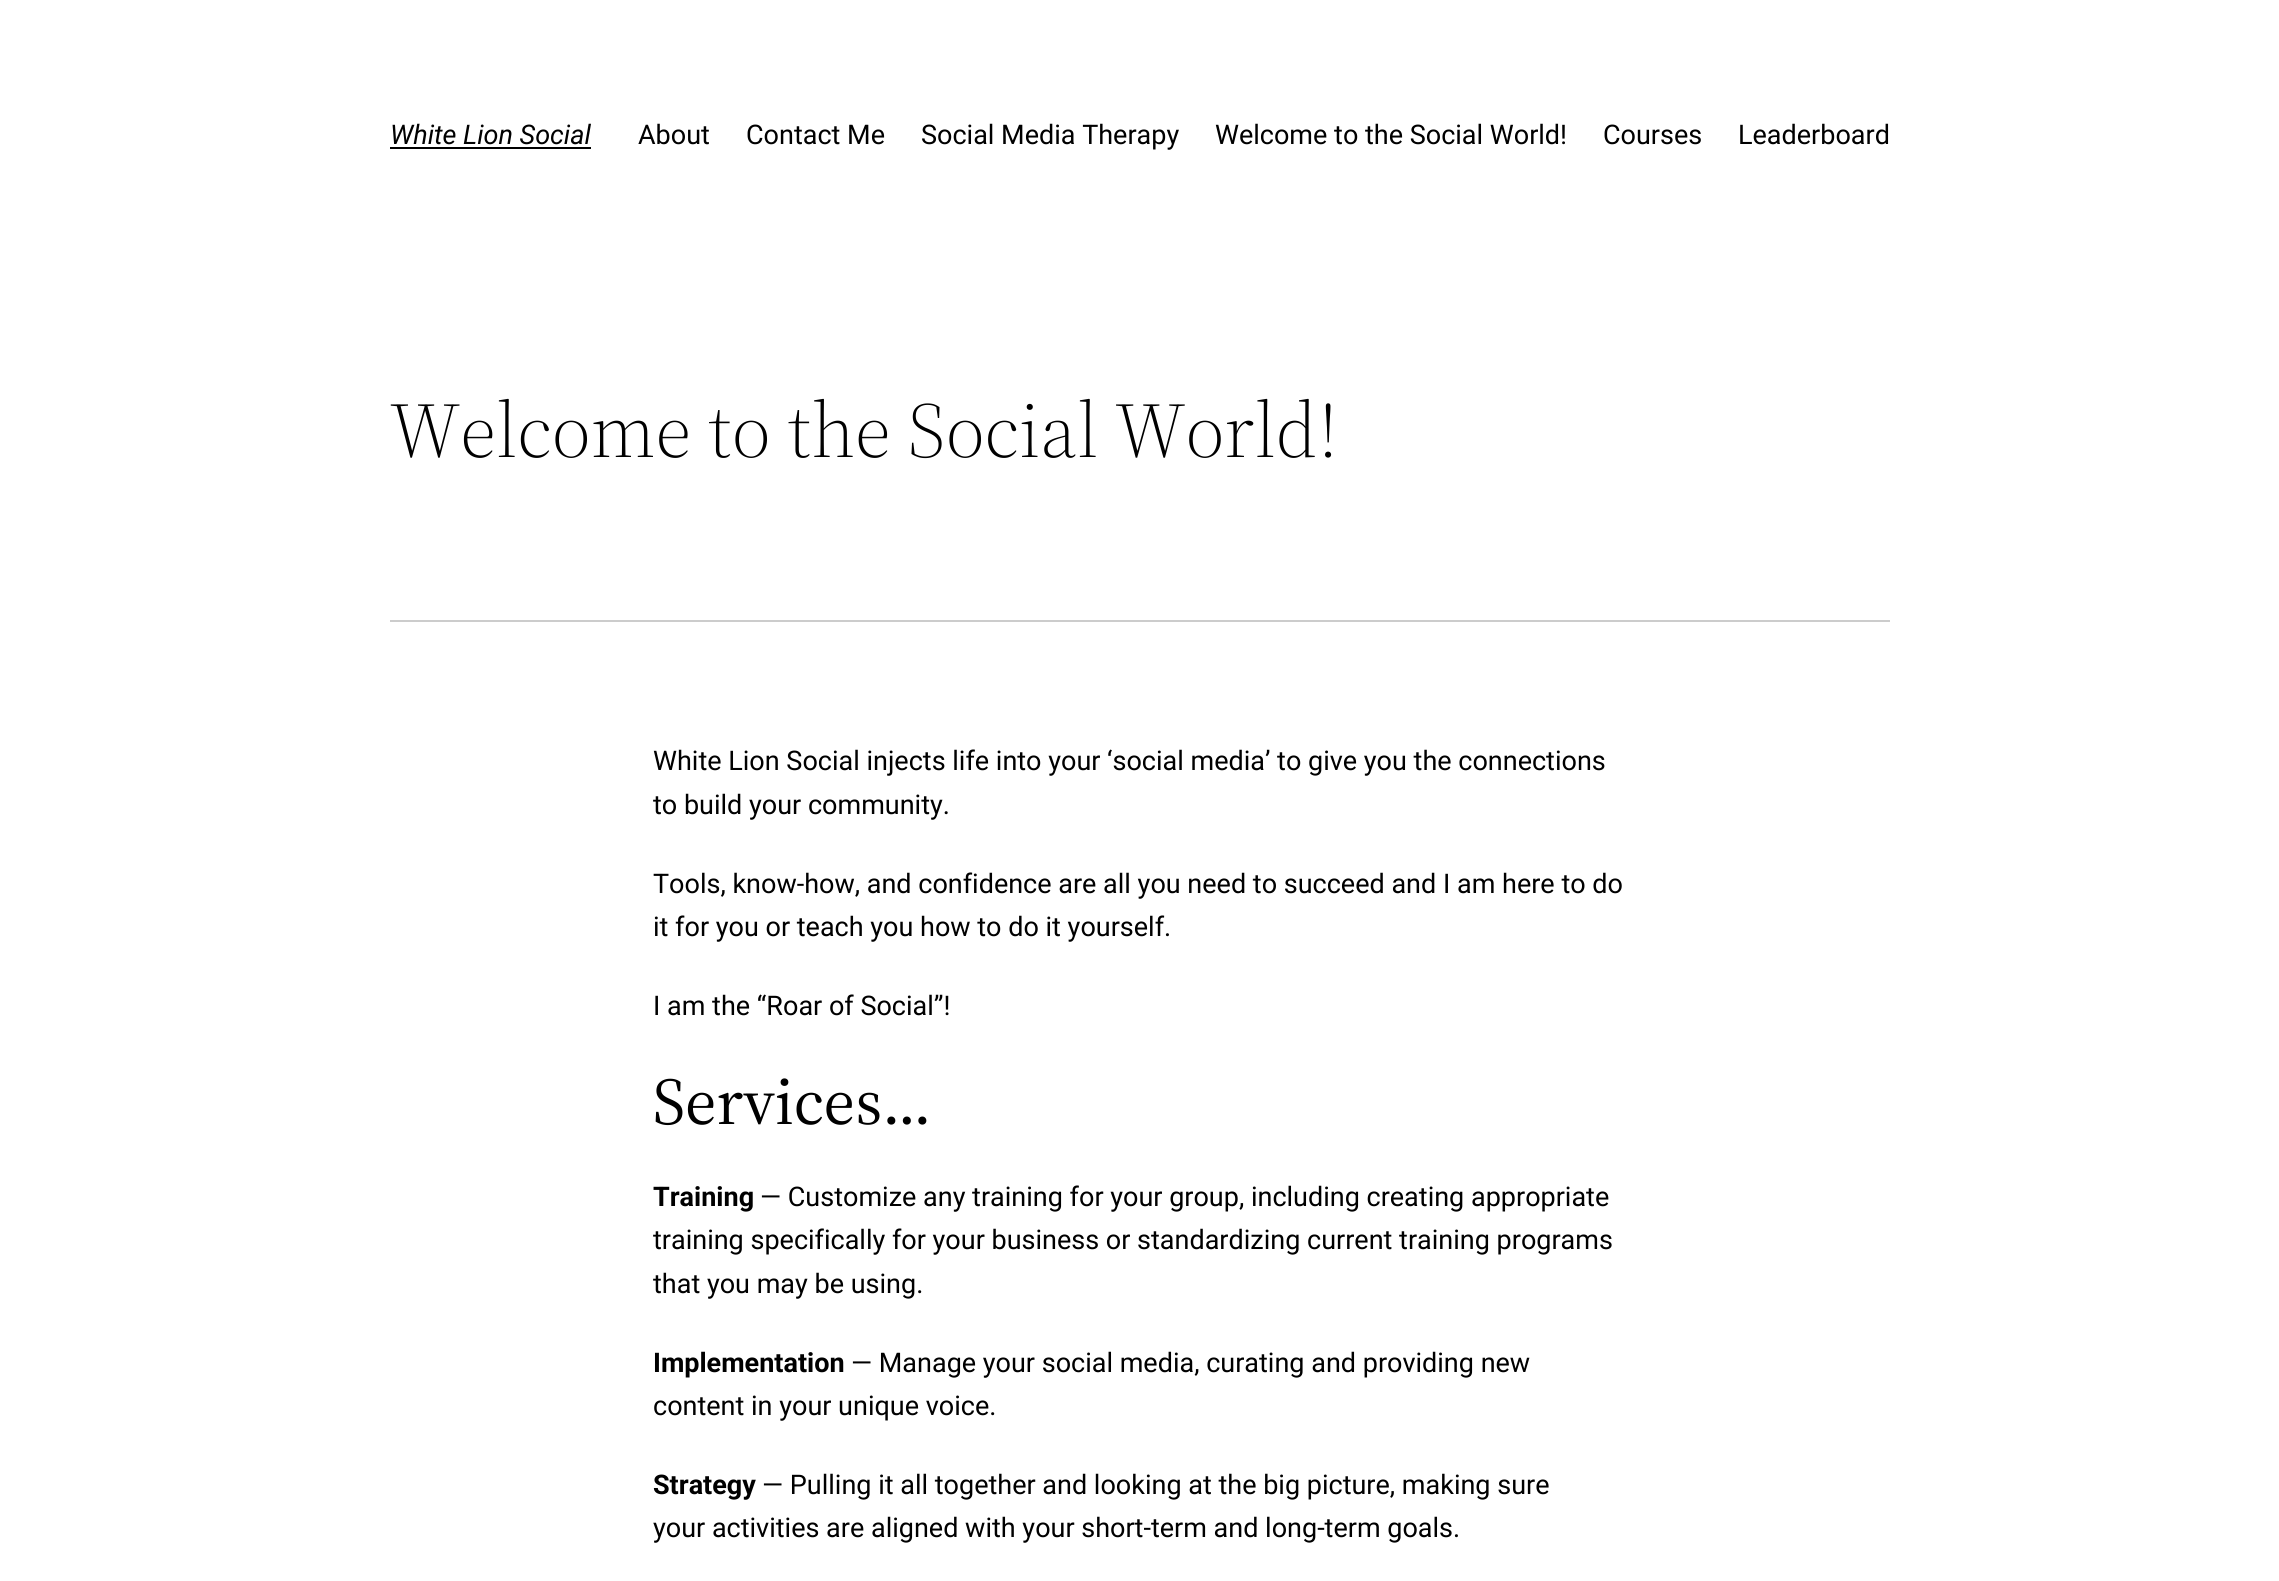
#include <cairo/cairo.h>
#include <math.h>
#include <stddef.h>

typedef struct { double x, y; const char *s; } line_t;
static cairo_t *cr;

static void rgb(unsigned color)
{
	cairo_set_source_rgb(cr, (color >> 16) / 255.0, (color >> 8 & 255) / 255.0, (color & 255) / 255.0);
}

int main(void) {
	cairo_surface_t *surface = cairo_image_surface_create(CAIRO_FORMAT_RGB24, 2279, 1581);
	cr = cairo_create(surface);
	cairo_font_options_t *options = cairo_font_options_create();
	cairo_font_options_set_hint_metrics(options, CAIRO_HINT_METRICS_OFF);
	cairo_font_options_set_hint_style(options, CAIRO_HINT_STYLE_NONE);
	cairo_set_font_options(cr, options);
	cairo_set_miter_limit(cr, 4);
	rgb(0xffffff);
	cairo_paint(cr);
	rgb(0x000000);
	cairo_rectangle(cr, 390, 147, 201, 2);
	cairo_fill(cr);
	rgb(0xcccccc);
	cairo_rectangle(cr, 390, 620, 1500, 2);
	cairo_fill(cr);
	cairo_select_font_face(cr, "Roboto", CAIRO_FONT_SLANT_ITALIC, CAIRO_FONT_WEIGHT_NORMAL);
	cairo_set_font_size(cr, 27);
	rgb(0x000000);
	cairo_move_to(cr, 390, 144);
	cairo_show_text(cr, "White Lion Social");
	cairo_select_font_face(cr, "Roboto", CAIRO_FONT_SLANT_NORMAL, CAIRO_FONT_WEIGHT_NORMAL);
	{
		static const line_t items[] = {
			{638, 144, "About"},
			{746, 144, "Contact Me"},
			{921, 144, "Social Media Therapy"},
			{1215, 144, "Welcome to the Social World!"},
			{1603, 144, "Courses"},
			{1738, 144, "Leaderboard"},
		};
		for (size_t i = 0; i < sizeof items / sizeof *items; i++) {
			cairo_move_to(cr, items[i].x, items[i].y);
			cairo_show_text(cr, items[i].s);
		}
	}
	cairo_select_font_face(cr, "Source Serif 4 Light", CAIRO_FONT_SLANT_NORMAL, CAIRO_FONT_WEIGHT_NORMAL);
	cairo_set_font_size(cr, 78);
	cairo_move_to(cr, 390, 457);
	cairo_show_text(cr, "Welcome to the Social World!");
	cairo_select_font_face(cr, "Roboto", CAIRO_FONT_SLANT_NORMAL, CAIRO_FONT_WEIGHT_NORMAL);
	cairo_set_font_size(cr, 27);
	{
		static const line_t items[] = {
			{653, 770, "White Lion Social injects life into your ‘social media’ to give you the connections"},
			{653, 814, "to build your community."},
			{653, 893, "Tools, know-how, and confidence are all you need to succeed and I am here to do"},
			{653, 936, "it for you or teach you how to do it yourself."},
			{653, 1015, "I am the “Roar of Social”!"},
		};
		for (size_t i = 0; i < sizeof items / sizeof *items; i++) {
			cairo_move_to(cr, items[i].x, items[i].y);
			cairo_show_text(cr, items[i].s);
		}
	}
	cairo_select_font_face(cr, "Source Serif 4", CAIRO_FONT_SLANT_NORMAL, CAIRO_FONT_WEIGHT_NORMAL);
	cairo_set_font_size(cr, 66);
	cairo_move_to(cr, 653, 1124);
	cairo_show_text(cr, "Services…");
	cairo_select_font_face(cr, "Roboto", CAIRO_FONT_SLANT_NORMAL, CAIRO_FONT_WEIGHT_BOLD);
	cairo_set_font_size(cr, 27);
	cairo_move_to(cr, 653, 1206);
	cairo_show_text(cr, "Training");
	cairo_select_font_face(cr, "Roboto", CAIRO_FONT_SLANT_NORMAL, CAIRO_FONT_WEIGHT_NORMAL);
	{
		static const line_t items[] = {
			{760, 1206, "— Customize any training for your group, including creating appropriate"},
			{653, 1249, "training specifically for your business or standardizing current training programs"},
			{653, 1293, "that you may be using."},
		};
		for (size_t i = 0; i < sizeof items / sizeof *items; i++) {
			cairo_move_to(cr, items[i].x, items[i].y);
			cairo_show_text(cr, items[i].s);
		}
	}
	cairo_select_font_face(cr, "Roboto", CAIRO_FONT_SLANT_NORMAL, CAIRO_FONT_WEIGHT_BOLD);
	cairo_move_to(cr, 653, 1372);
	cairo_show_text(cr, "Implementation");
	cairo_select_font_face(cr, "Roboto", CAIRO_FONT_SLANT_NORMAL, CAIRO_FONT_WEIGHT_NORMAL);
	cairo_move_to(cr, 851, 1372);
	cairo_show_text(cr, "— Manage your social media, curating and providing new");
	cairo_move_to(cr, 653, 1415);
	cairo_show_text(cr, "content in your unique voice.");
	cairo_select_font_face(cr, "Roboto", CAIRO_FONT_SLANT_NORMAL, CAIRO_FONT_WEIGHT_BOLD);
	cairo_move_to(cr, 653, 1494);
	cairo_show_text(cr, "Strategy");
	cairo_select_font_face(cr, "Roboto", CAIRO_FONT_SLANT_NORMAL, CAIRO_FONT_WEIGHT_NORMAL);
	cairo_move_to(cr, 762, 1494);
	cairo_show_text(cr, "— Pulling it all together and looking at the big picture, making sure");
	cairo_move_to(cr, 653, 1537);
	cairo_show_text(cr, "your activities are aligned with your short-term and long-term goals.");
	cairo_surface_write_to_png(surface, "page.png");
	cairo_font_options_destroy(options);
	cairo_destroy(cr);
	cairo_surface_destroy(surface);
	return 0;
}
